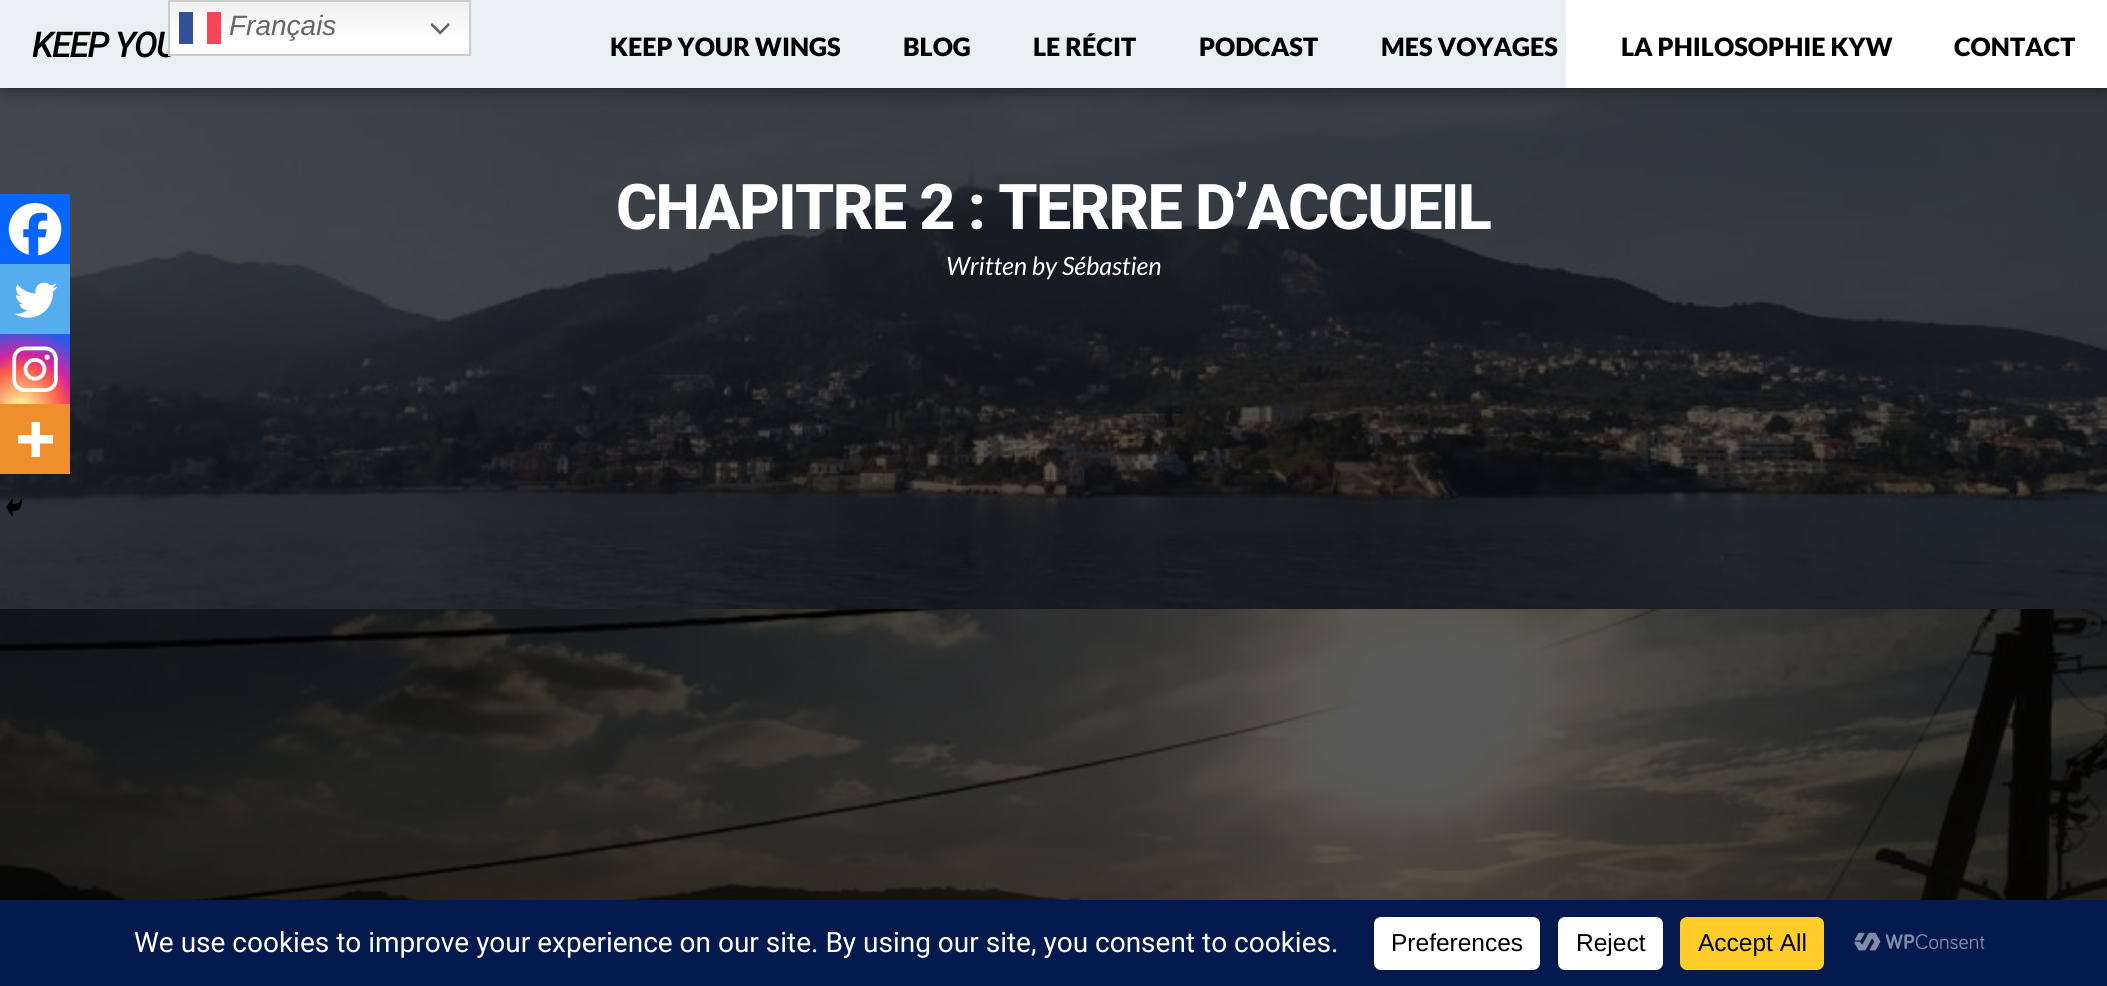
#include <cairo/cairo.h>
#include <math.h>
#include <stddef.h>

typedef struct { double x, y; const char *s; } line_t;
typedef struct { double x, y, w, h; unsigned color; } box_t;
static cairo_t *cr;

static void rgb(unsigned color)
{
	cairo_set_source_rgb(cr, (color >> 16) / 255.0, (color >> 8 & 255) / 255.0, (color & 255) / 255.0);
}

static void tracked(double x, double y, const char *s, double letter, double word)
{
	cairo_move_to(cr, x, y);
	while (*s) {
		char ch[5] = {0};
		int n = 0;
		do ch[n++] = *s++; while ((*s & 0xC0) == 0x80);
		cairo_show_text(cr, ch);
		cairo_rel_move_to(cr, letter + word * (*ch == ' '), 0);
	}
}

static void rrect(double x, double y, double w, double h, double r)
{
	cairo_new_sub_path(cr);
	cairo_arc(cr, x + w - r, y + h - r, r, 0, M_PI / 2);
	cairo_arc(cr, x + r, y + h - r, r, M_PI / 2, M_PI);
	cairo_arc(cr, x + r, y + r, r, M_PI, 1.5 * M_PI);
	cairo_arc(cr, x + w - r, y + r, r, 1.5 * M_PI, 2 * M_PI);
	cairo_close_path(cr);
}

static void soft_shadow(double x, double y, double w, double h, double r, double blur, double alpha)
{
	cairo_push_group_with_content(cr, CAIRO_CONTENT_ALPHA);
	cairo_set_operator(cr, CAIRO_OPERATOR_SOURCE);
	for (int i = 15; i >= -15 && fmin(w, h) + blur * i / 3 > 0; i -= 2) {
		double e = blur * i / 6;
		cairo_set_source_rgba(cr, 0, 0, 0, alpha * erfc((i - 1) / 8.5) / 2);
		rrect(x - e, y - e, w + 2 * e, h + 2 * e, fmax(0, fmin(r + e + blur * .6, fmin(w, h) / 2 + e)));
		cairo_fill(cr);
	}
	cairo_pattern_t *soft = cairo_pop_group(cr);
	cairo_mask(cr, soft);
	cairo_pattern_destroy(soft);
}

static void image(const char *path, double x, double y, double w, double h)
{
	cairo_surface_t *image = cairo_image_surface_create_from_png(path);
	cairo_save(cr);
	cairo_set_source_surface(cr, image, x, y);
	cairo_rectangle(cr, x, y, w, h);
	cairo_fill(cr);
	cairo_restore(cr);
	cairo_surface_destroy(image);
}

int main(void) {
	cairo_surface_t *surface = cairo_image_surface_create(CAIRO_FORMAT_RGB24, 2107, 986);
	cr = cairo_create(surface);
	cairo_font_options_t *options = cairo_font_options_create();
	cairo_font_options_set_hint_metrics(options, CAIRO_HINT_METRICS_OFF);
	cairo_font_options_set_hint_style(options, CAIRO_HINT_STYLE_NONE);
	cairo_set_font_options(cr, options);
	cairo_set_miter_limit(cr, 4);
	cairo_pattern_t *gradient;
	rgb(0xffffff);
	cairo_paint(cr);
	rgb(0x04194e);
	cairo_rectangle(cr, 0, 900, 2107, 86);
	cairo_fill(cr);
	rgb(0xffffff);
	rrect(1374, 917, 166, 53, 7);
	cairo_fill(cr);
	rrect(1558, 917, 105, 53, 7);
	cairo_fill(cr);
	rgb(0xffcd2a);
	rrect(1680, 917, 144, 53, 7);
	cairo_fill(cr);
	image("img/2.png", 1854, 932, 131, 19);
	image("img/7.png", 0, 88, 2107, 521);
	rgb(0x000000);
	soft_shadow(4, 4, 2100, 80, 0, 10.5, 0.75);
	{
		static const box_t items[] = {
			{1566, 0, 541, 88, 0xffffff},
			{0, 0, 1566, 88, 0xe9f0f3},
			{0, 194, 70, 70, 0x0765fe},
		};
		for (size_t i = 0; i < sizeof items / sizeof *items; i++) {
			rgb(items[i].color);
			cairo_rectangle(cr, items[i].x, items[i].y, items[i].w, items[i].h);
			cairo_fill(cr);
		}
	}
	image("img/3.png", 8, 203, 54, 53);
	rgb(0x55acee);
	cairo_rectangle(cr, 0, 264, 70, 70);
	cairo_fill(cr);
	image("img/4.png", 14, 282, 44, 36);
	gradient = cairo_pattern_create_radial(21, 409, 0, 21, 409, 90);
	cairo_pattern_add_color_stop_rgba(gradient, 0, 0.992, 0.957, 0.592, 1);
	cairo_pattern_add_color_stop_rgba(gradient, 0.05, 0.992, 0.957, 0.592, 1);
	cairo_pattern_add_color_stop_rgba(gradient, 0.45, 0.992, 0.349, 0.286, 1);
	cairo_pattern_add_color_stop_rgba(gradient, 0.6, 0.839, 0.141, 0.624, 1);
	cairo_pattern_add_color_stop_rgba(gradient, 0.9, 0.157, 0.353, 0.922, 1);
	cairo_set_source(cr, gradient);
	cairo_pattern_destroy(gradient);
	cairo_rectangle(cr, 0, 334, 70, 70);
	cairo_fill(cr);
	image("img/5.png", 12, 346, 46, 46);
	rgb(0xee8e2d);
	cairo_rectangle(cr, 0, 404, 70, 70);
	cairo_fill(cr);
	rgb(0xffffff);
	cairo_set_fill_rule(cr, CAIRO_FILL_RULE_EVEN_ODD);
	cairo_new_path(cr);
	cairo_move_to(cr, 40, 435);
	cairo_line_to(cr, 40, 422);
	cairo_line_to(cr, 31.5, 422);
	cairo_line_to(cr, 31.5, 435);
	cairo_line_to(cr, 18, 435);
	cairo_line_to(cr, 18, 443.5);
	cairo_line_to(cr, 31.5, 443.5);
	cairo_line_to(cr, 31.5, 457);
	cairo_line_to(cr, 40, 457);
	cairo_line_to(cr, 40, 443.5);
	cairo_line_to(cr, 53, 443.5);
	cairo_line_to(cr, 53, 435);
	cairo_close_path(cr);
	cairo_fill(cr);
	image("img/6.png", 6, 498, 16, 19);
	image("img/8.png", 0, 609, 2107, 291);
	cairo_select_font_face(cr, "Roboto", CAIRO_FONT_SLANT_NORMAL, CAIRO_FONT_WEIGHT_NORMAL);
	cairo_set_font_size(cr, 28);
	cairo_move_to(cr, 134, 952);
	cairo_show_text(cr, "We use cookies to improve your experience on our site. By using our site, you consent to cookies.");
	cairo_select_font_face(cr, "Liberation Sans", CAIRO_FONT_SLANT_NORMAL, CAIRO_FONT_WEIGHT_NORMAL);
	cairo_set_font_size(cr, 24.5);
	rgb(0x000000);
	{
		static const line_t items[] = {
			{1391, 951, "Preferences"},
			{1576, 951, "Reject"},
			{1698, 951, "Accept All"},
		};
		for (size_t i = 0; i < sizeof items / sizeof *items; i++) {
			cairo_move_to(cr, items[i].x, items[i].y);
			cairo_show_text(cr, items[i].s);
		}
	}
	cairo_select_font_face(cr, "Roboto Medium", CAIRO_FONT_SLANT_ITALIC, CAIRO_FONT_WEIGHT_NORMAL);
	cairo_set_font_size(cr, 35.5);
	tracked(32, 57, "KEEP YOU", -1.75, 0);
	gradient = cairo_pattern_create_linear(319, 0, 319, 56);
	cairo_pattern_add_color_stop_rgba(gradient, 0, 0.937, 0.937, 0.937, 1);
	cairo_pattern_add_color_stop_rgba(gradient, 0.7, 1, 1, 1, 1);
	cairo_set_source(cr, gradient);
	cairo_pattern_destroy(gradient);
	cairo_rectangle(cr, 170, 2, 299, 52);
	cairo_fill(cr);
	cairo_rectangle(cr, 169, 1, 301, 54);
	rgb(0xcccccc);
	cairo_stroke(cr);
	image("img/1.png", 431, 23, 19, 12);
	cairo_set_source_rgba(cr, 1, 1, 1, 0.8);
	cairo_rectangle(cr, 193, 12, 27, 19);
	cairo_fill(cr);
	cairo_set_source_rgba(cr, 0.953, 0.094, 0.188, 0.8);
	cairo_rectangle(cr, 207, 12, 14, 32);
	cairo_fill(cr);
	rgb(0x335198);
	cairo_rectangle(cr, 179, 12, 14, 32);
	cairo_fill(cr);
	cairo_select_font_face(cr, "Liberation Sans", CAIRO_FONT_SLANT_ITALIC, CAIRO_FONT_WEIGHT_NORMAL);
	cairo_set_font_size(cr, 28);
	rgb(0x666666);
	cairo_move_to(cr, 229, 35);
	cairo_show_text(cr, "Français");
	cairo_select_font_face(cr, "Lato Black", CAIRO_FONT_SLANT_NORMAL, CAIRO_FONT_WEIGHT_NORMAL);
	cairo_set_font_size(cr, 25.25);
	rgb(0x000000);
	{
		static const line_t items[] = {
			{610, 56, "KEEP YOUR WINGS"},
			{903, 56, "BLOG"},
			{1033, 56, "LE RÉCIT"},
			{1199, 56, "PODCAST"},
			{1381, 56, "MES VOYAGES"},
			{1621, 56, "LA PHILOSOPHIE KYW"},
			{1954, 56, "CONTACT"},
		};
		for (size_t i = 0; i < sizeof items / sizeof *items; i++) {
			cairo_move_to(cr, items[i].x, items[i].y);
			cairo_show_text(cr, items[i].s);
		}
	}
	cairo_select_font_face(cr, "Roboto ExtraBold", CAIRO_FONT_SLANT_NORMAL, CAIRO_FONT_WEIGHT_NORMAL);
	cairo_set_font_size(cr, 63);
	rgb(0xffffff);
	tracked(616, 229, "CHAPITRE 2 : TERRE D’ACCUEIL", -1.75, 0);
	cairo_select_font_face(cr, "Lato", CAIRO_FONT_SLANT_ITALIC, CAIRO_FONT_WEIGHT_NORMAL);
	cairo_set_font_size(cr, 25.25);
	cairo_move_to(cr, 946, 275);
	cairo_show_text(cr, "Written by Sébastien");
	cairo_surface_write_to_png(surface, "page.png");
	cairo_font_options_destroy(options);
	cairo_destroy(cr);
	cairo_surface_destroy(surface);
	return 0;
}
